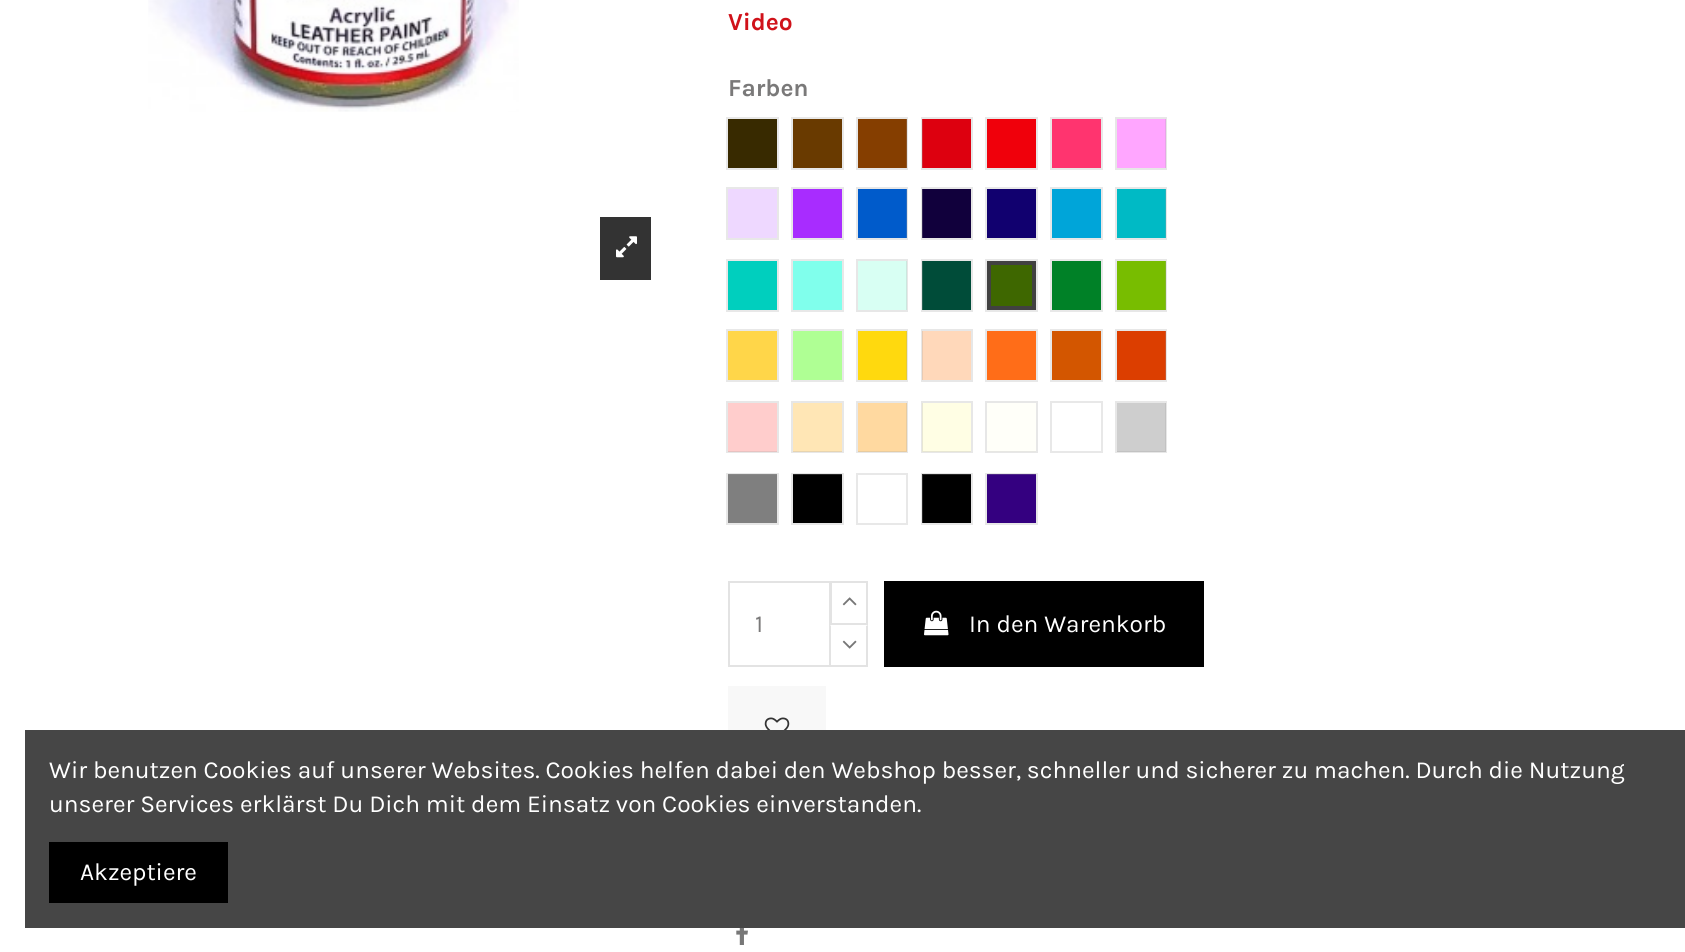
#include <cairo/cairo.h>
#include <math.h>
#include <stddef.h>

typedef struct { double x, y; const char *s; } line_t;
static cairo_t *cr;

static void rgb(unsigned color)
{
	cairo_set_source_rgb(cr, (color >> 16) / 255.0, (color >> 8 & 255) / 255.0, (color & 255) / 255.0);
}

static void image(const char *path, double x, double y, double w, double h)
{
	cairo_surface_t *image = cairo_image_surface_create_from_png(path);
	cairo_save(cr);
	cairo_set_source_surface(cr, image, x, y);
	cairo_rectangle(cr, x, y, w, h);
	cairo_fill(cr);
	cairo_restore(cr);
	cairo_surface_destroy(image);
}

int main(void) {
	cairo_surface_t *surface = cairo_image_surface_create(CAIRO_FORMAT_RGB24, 1685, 952);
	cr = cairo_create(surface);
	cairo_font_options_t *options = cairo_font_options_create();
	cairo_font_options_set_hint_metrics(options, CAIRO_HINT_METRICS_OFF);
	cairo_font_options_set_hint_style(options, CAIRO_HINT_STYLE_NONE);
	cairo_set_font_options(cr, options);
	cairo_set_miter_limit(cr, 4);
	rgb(0xffffff);
	cairo_paint(cr);
	image("img/1.png", 148, 0, 371, 112);
	rgb(0x333333);
	cairo_rectangle(cr, 600, 217, 51, 63);
	cairo_fill(cr);
	image("img/2.png", 616, 236, 21, 22);
	rgb(0x382a00);
	cairo_rectangle(cr, 727, 118, 51, 51);
	cairo_fill_preserve(cr);
	rgb(0xe8e8e8);
	cairo_stroke(cr);
	rgb(0x693a00);
	cairo_rectangle(cr, 792, 118, 51, 51);
	cairo_fill_preserve(cr);
	rgb(0xe8e8e8);
	cairo_stroke(cr);
	rgb(0x853e00);
	cairo_rectangle(cr, 858, 119, 49, 49);
	cairo_fill(cr);
	cairo_rectangle(cr, 857, 118, 50, 51);
	cairo_set_source_rgba(cr, 0.631, 0.631, 0.631, 0.25);
	cairo_stroke(cr);
	rgb(0xdd000f);
	cairo_rectangle(cr, 922, 119, 49, 49);
	cairo_fill(cr);
	cairo_rectangle(cr, 922, 118, 50, 51);
	cairo_set_source_rgba(cr, 0.631, 0.631, 0.631, 0.25);
	cairo_stroke(cr);
	rgb(0xf0000b);
	cairo_rectangle(cr, 986, 118, 51, 51);
	cairo_fill_preserve(cr);
	rgb(0xe8e8e8);
	cairo_stroke(cr);
	rgb(0xff346f);
	cairo_rectangle(cr, 1051, 118, 51, 51);
	cairo_fill_preserve(cr);
	rgb(0xe8e8e8);
	cairo_stroke(cr);
	rgb(0xffa6ff);
	cairo_rectangle(cr, 1117, 119, 49, 49);
	cairo_fill(cr);
	cairo_rectangle(cr, 1116, 118, 50, 51);
	cairo_set_source_rgba(cr, 0.631, 0.631, 0.631, 0.25);
	cairo_stroke(cr);
	rgb(0xeed8ff);
	cairo_rectangle(cr, 727, 188, 51, 51);
	cairo_fill_preserve(cr);
	rgb(0xe8e8e8);
	cairo_stroke(cr);
	rgb(0xa82cff);
	cairo_rectangle(cr, 792, 188, 51, 51);
	cairo_fill_preserve(cr);
	rgb(0xe8e8e8);
	cairo_stroke(cr);
	rgb(0x005bcb);
	cairo_rectangle(cr, 858, 189, 49, 49);
	cairo_fill(cr);
	cairo_rectangle(cr, 857, 188, 50, 51);
	cairo_set_source_rgba(cr, 0.631, 0.631, 0.631, 0.25);
	cairo_stroke(cr);
	rgb(0x11003c);
	cairo_rectangle(cr, 922, 189, 49, 49);
	cairo_fill(cr);
	cairo_rectangle(cr, 922, 188, 50, 51);
	cairo_set_source_rgba(cr, 0.631, 0.631, 0.631, 0.25);
	cairo_stroke(cr);
	rgb(0x11006f);
	cairo_rectangle(cr, 986, 188, 51, 51);
	cairo_fill_preserve(cr);
	rgb(0xe8e8e8);
	cairo_stroke(cr);
	rgb(0x00a5d9);
	cairo_rectangle(cr, 1051, 188, 51, 51);
	cairo_fill_preserve(cr);
	rgb(0xe8e8e8);
	cairo_stroke(cr);
	rgb(0x00bac5);
	cairo_rectangle(cr, 1117, 189, 49, 49);
	cairo_fill(cr);
	cairo_rectangle(cr, 1116, 188, 50, 51);
	cairo_set_source_rgba(cr, 0.631, 0.631, 0.631, 0.25);
	cairo_stroke(cr);
	rgb(0x00cfbe);
	cairo_rectangle(cr, 727, 260, 51, 51);
	cairo_fill_preserve(cr);
	rgb(0xe8e8e8);
	cairo_stroke(cr);
	rgb(0x80ffec);
	cairo_rectangle(cr, 792, 260, 51, 51);
	cairo_fill_preserve(cr);
	rgb(0xe8e8e8);
	cairo_stroke(cr);
	rgb(0xd8fff3);
	cairo_rectangle(cr, 858, 261, 49, 49);
	cairo_fill(cr);
	cairo_rectangle(cr, 857, 260, 50, 51);
	cairo_set_source_rgba(cr, 0.631, 0.631, 0.631, 0.25);
	cairo_stroke(cr);
	rgb(0x004c39);
	cairo_rectangle(cr, 922, 261, 49, 49);
	cairo_fill(cr);
	cairo_rectangle(cr, 922, 260, 50, 51);
	cairo_set_source_rgba(cr, 0.631, 0.631, 0.631, 0.25);
	cairo_stroke(cr);
	rgb(0x3e6700);
	cairo_rectangle(cr, 989, 263, 45, 45);
	cairo_fill_preserve(cr);
	rgb(0x414141);
	cairo_set_line_width(cr, 4);
	cairo_stroke(cr);
	cairo_rectangle(cr, 986, 260, 51, 51);
	rgb(0xe8e8e8);
	cairo_set_line_width(cr, 2);
	cairo_stroke(cr);
	rgb(0x008127);
	cairo_rectangle(cr, 1051, 260, 51, 51);
	cairo_fill_preserve(cr);
	rgb(0xe8e8e8);
	cairo_stroke(cr);
	rgb(0x78bd00);
	cairo_rectangle(cr, 1117, 261, 49, 49);
	cairo_fill(cr);
	cairo_rectangle(cr, 1116, 260, 50, 51);
	cairo_set_source_rgba(cr, 0.631, 0.631, 0.631, 0.25);
	cairo_stroke(cr);
	rgb(0xffd649);
	cairo_rectangle(cr, 727, 330, 51, 51);
	cairo_fill_preserve(cr);
	rgb(0xe8e8e8);
	cairo_stroke(cr);
	rgb(0xafff94);
	cairo_rectangle(cr, 792, 330, 51, 51);
	cairo_fill_preserve(cr);
	rgb(0xe8e8e8);
	cairo_stroke(cr);
	rgb(0xffd90e);
	cairo_rectangle(cr, 858, 331, 49, 49);
	cairo_fill(cr);
	cairo_rectangle(cr, 857, 330, 50, 51);
	cairo_set_source_rgba(cr, 0.631, 0.631, 0.631, 0.25);
	cairo_stroke(cr);
	rgb(0xffd8ba);
	cairo_rectangle(cr, 922, 331, 49, 49);
	cairo_fill(cr);
	cairo_rectangle(cr, 922, 330, 50, 51);
	cairo_set_source_rgba(cr, 0.631, 0.631, 0.631, 0.25);
	cairo_stroke(cr);
	rgb(0xff6d18);
	cairo_rectangle(cr, 986, 330, 51, 51);
	cairo_fill_preserve(cr);
	rgb(0xe8e8e8);
	cairo_stroke(cr);
	rgb(0xd35600);
	cairo_rectangle(cr, 1051, 330, 51, 51);
	cairo_fill_preserve(cr);
	rgb(0xe8e8e8);
	cairo_stroke(cr);
	rgb(0xdc3e00);
	cairo_rectangle(cr, 1117, 331, 49, 49);
	cairo_fill(cr);
	cairo_rectangle(cr, 1116, 330, 50, 51);
	cairo_set_source_rgba(cr, 0.631, 0.631, 0.631, 0.25);
	cairo_stroke(cr);
	rgb(0xffcdcc);
	cairo_rectangle(cr, 728, 403, 49, 49);
	cairo_fill(cr);
	cairo_rectangle(cr, 727, 402, 51, 50);
	cairo_set_source_rgba(cr, 0.631, 0.631, 0.631, 0.25);
	cairo_stroke(cr);
	rgb(0xffe6b5);
	cairo_rectangle(cr, 793, 403, 49, 49);
	cairo_fill(cr);
	cairo_rectangle(cr, 792, 402, 51, 50);
	cairo_set_source_rgba(cr, 0.631, 0.631, 0.631, 0.25);
	cairo_stroke(cr);
	rgb(0xffd9a0);
	cairo_rectangle(cr, 858, 403, 49, 49);
	cairo_fill(cr);
	cairo_rectangle(cr, 857, 402, 50, 50);
	cairo_set_source_rgba(cr, 0.631, 0.631, 0.631, 0.25);
	cairo_stroke(cr);
	rgb(0xfffee4);
	cairo_rectangle(cr, 922, 403, 49, 49);
	cairo_fill(cr);
	cairo_rectangle(cr, 922, 402, 50, 50);
	cairo_set_source_rgba(cr, 0.631, 0.631, 0.631, 0.25);
	cairo_stroke(cr);
	rgb(0xfffff9);
	cairo_rectangle(cr, 987, 403, 49, 49);
	cairo_fill(cr);
	cairo_rectangle(cr, 986, 402, 51, 50);
	cairo_set_source_rgba(cr, 0.631, 0.631, 0.631, 0.25);
	cairo_stroke(cr);
	cairo_rectangle(cr, 1051, 402, 51, 50);
	rgb(0xe8e8e8);
	cairo_stroke(cr);
	rgb(0xcecece);
	cairo_rectangle(cr, 1117, 403, 49, 49);
	cairo_fill(cr);
	cairo_rectangle(cr, 1116, 402, 50, 50);
	cairo_set_source_rgba(cr, 0.631, 0.631, 0.631, 0.25);
	cairo_stroke(cr);
	rgb(0x7f7f7f);
	cairo_rectangle(cr, 728, 474, 49, 49);
	cairo_fill(cr);
	cairo_rectangle(cr, 727, 474, 51, 50);
	cairo_set_source_rgba(cr, 0.631, 0.631, 0.631, 0.25);
	cairo_stroke(cr);
	rgb(0x000000);
	cairo_rectangle(cr, 793, 474, 49, 49);
	cairo_fill(cr);
	cairo_rectangle(cr, 792, 474, 51, 50);
	cairo_set_source_rgba(cr, 0.631, 0.631, 0.631, 0.25);
	cairo_stroke(cr);
	cairo_rectangle(cr, 857, 474, 50, 50);
	rgb(0xe8e8e8);
	cairo_stroke(cr);
	rgb(0x000000);
	cairo_rectangle(cr, 922, 474, 49, 49);
	cairo_fill(cr);
	cairo_rectangle(cr, 922, 474, 50, 50);
	cairo_set_source_rgba(cr, 0.631, 0.631, 0.631, 0.25);
	cairo_stroke(cr);
	rgb(0x340080);
	cairo_rectangle(cr, 987, 474, 49, 49);
	cairo_fill(cr);
	cairo_rectangle(cr, 986, 474, 51, 50);
	cairo_set_source_rgba(cr, 0.631, 0.631, 0.631, 0.25);
	cairo_stroke(cr);
	cairo_rectangle(cr, 729, 582, 101, 84);
	rgb(0xe3e3e3);
	cairo_stroke(cr);
	cairo_rectangle(cr, 831, 582, 36, 42);
	cairo_stroke(cr);
	image("img/3.png", 842, 597, 15, 9);
	rgb(0xffffff);
	cairo_rectangle(cr, 830, 625, 1, 40);
	cairo_fill(cr);
	rgb(0xe3e3e3);
	cairo_new_path(cr);
	cairo_move_to(cr, 868, 625);
	cairo_line_to(cr, 868, 667);
	cairo_line_to(cr, 866, 665);
	cairo_line_to(cr, 866, 626);
	cairo_close_path(cr);
	cairo_fill(cr);
	cairo_rectangle(cr, 830, 665, 38, 2);
	cairo_fill(cr);
	cairo_new_path(cr);
	cairo_move_to(cr, 830, 667);
	cairo_line_to(cr, 830, 625);
	cairo_line_to(cr, 831, 626);
	cairo_line_to(cr, 831, 665);
	cairo_close_path(cr);
	cairo_fill(cr);
	image("img/4.png", 842, 640, 15, 9);
	rgb(0x000000);
	cairo_rectangle(cr, 884, 581, 320, 86);
	cairo_fill(cr);
	image("img/5.png", 924, 610, 25, 26);
	rgb(0xf8f8f8);
	cairo_rectangle(cr, 728, 686, 98, 44);
	cairo_fill(cr);
	image("img/6.png", 764, 717, 26, 13);
	image("img/7.png", 736, 928, 12, 17);
	rgb(0x464646);
	cairo_rectangle(cr, 25, 730, 1660, 198);
	cairo_fill(cr);
	rgb(0x000000);
	cairo_rectangle(cr, 49, 842, 179, 61);
	cairo_fill(cr);
	cairo_select_font_face(cr, "Karla", CAIRO_FONT_SLANT_NORMAL, CAIRO_FONT_WEIGHT_BOLD);
	cairo_set_font_size(cr, 24.5);
	rgb(0xd0121a);
	cairo_move_to(cr, 728, 30);
	cairo_show_text(cr, "Video");
	rgb(0x7a7979);
	cairo_move_to(cr, 728, 96);
	cairo_show_text(cr, "Farben");
	cairo_select_font_face(cr, "Karla", CAIRO_FONT_SLANT_NORMAL, CAIRO_FONT_WEIGHT_NORMAL);
	cairo_move_to(cr, 755, 632);
	cairo_show_text(cr, "1");
	rgb(0xffffff);
	{
		static const line_t items[] = {
			{969, 632, "In den Warenkorb"},
			{49, 778, "Wir benutzen Cookies auf unserer Websites. Cookies helfen dabei den Webshop besser, schneller und sicherer zu machen. Durch die Nutzung"},
			{49, 812, "unserer Services erklärst Du Dich mit dem Einsatz von Cookies einverstanden."},
			{80, 880, "Akzeptiere"},
		};
		for (size_t i = 0; i < sizeof items / sizeof *items; i++) {
			cairo_move_to(cr, items[i].x, items[i].y);
			cairo_show_text(cr, items[i].s);
		}
	}
	cairo_surface_write_to_png(surface, "page.png");
	cairo_font_options_destroy(options);
	cairo_destroy(cr);
	cairo_surface_destroy(surface);
	return 0;
}
